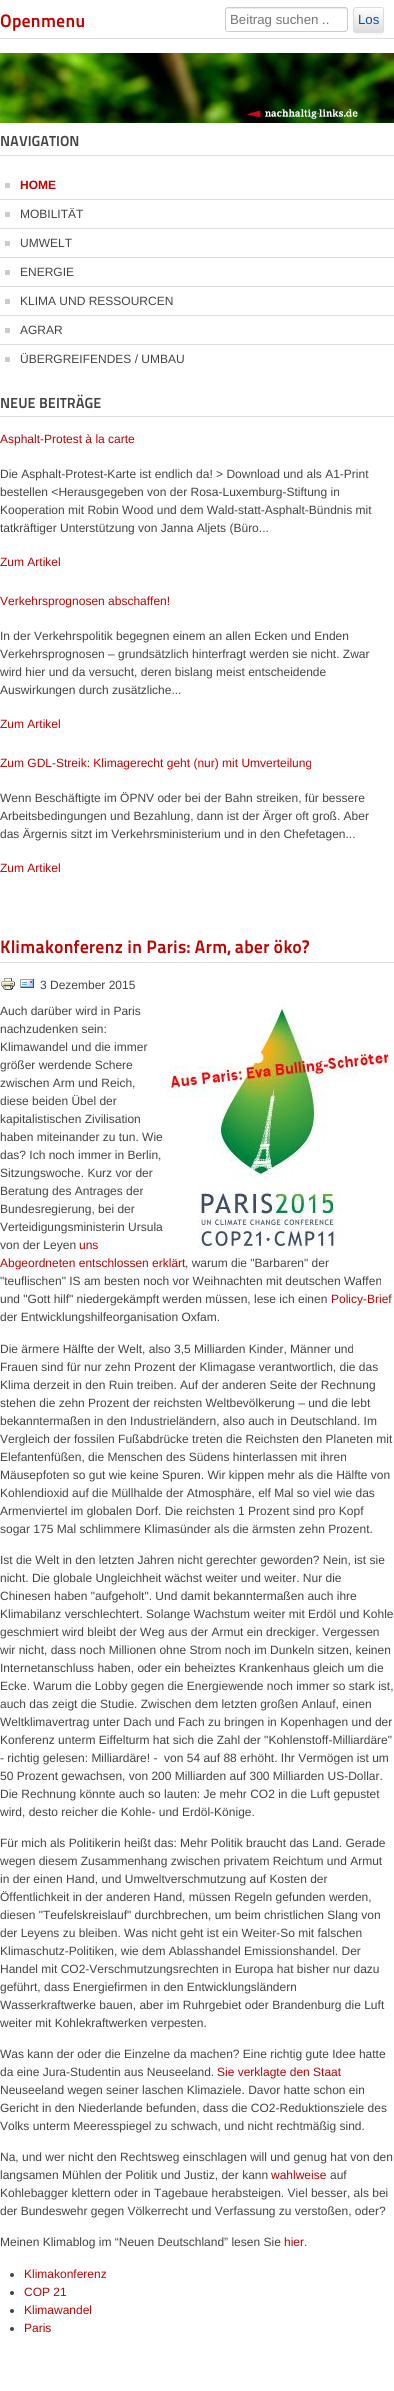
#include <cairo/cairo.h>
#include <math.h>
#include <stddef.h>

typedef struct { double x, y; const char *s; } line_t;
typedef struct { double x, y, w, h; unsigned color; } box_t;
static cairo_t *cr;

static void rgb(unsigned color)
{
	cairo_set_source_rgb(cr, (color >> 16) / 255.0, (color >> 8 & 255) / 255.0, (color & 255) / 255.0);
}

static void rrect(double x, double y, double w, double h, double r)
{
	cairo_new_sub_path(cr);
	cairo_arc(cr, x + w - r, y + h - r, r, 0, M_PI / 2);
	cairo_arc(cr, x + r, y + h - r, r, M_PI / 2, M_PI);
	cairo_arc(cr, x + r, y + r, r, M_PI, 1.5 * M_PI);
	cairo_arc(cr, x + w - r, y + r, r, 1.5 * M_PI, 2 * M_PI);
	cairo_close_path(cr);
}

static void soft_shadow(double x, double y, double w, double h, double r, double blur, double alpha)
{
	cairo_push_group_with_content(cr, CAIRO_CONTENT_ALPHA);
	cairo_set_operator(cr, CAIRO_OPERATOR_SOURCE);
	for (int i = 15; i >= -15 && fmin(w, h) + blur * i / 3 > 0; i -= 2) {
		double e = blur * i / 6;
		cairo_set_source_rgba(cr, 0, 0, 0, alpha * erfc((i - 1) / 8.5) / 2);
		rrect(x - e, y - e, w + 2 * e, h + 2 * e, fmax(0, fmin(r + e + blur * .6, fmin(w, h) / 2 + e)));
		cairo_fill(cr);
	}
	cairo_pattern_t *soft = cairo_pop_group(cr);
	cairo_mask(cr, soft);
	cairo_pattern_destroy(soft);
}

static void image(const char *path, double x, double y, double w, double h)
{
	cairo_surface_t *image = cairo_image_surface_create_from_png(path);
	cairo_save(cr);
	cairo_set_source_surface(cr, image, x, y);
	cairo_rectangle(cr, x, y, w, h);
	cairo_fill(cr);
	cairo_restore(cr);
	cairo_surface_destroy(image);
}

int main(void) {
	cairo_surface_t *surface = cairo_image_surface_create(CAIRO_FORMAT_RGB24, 394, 2391);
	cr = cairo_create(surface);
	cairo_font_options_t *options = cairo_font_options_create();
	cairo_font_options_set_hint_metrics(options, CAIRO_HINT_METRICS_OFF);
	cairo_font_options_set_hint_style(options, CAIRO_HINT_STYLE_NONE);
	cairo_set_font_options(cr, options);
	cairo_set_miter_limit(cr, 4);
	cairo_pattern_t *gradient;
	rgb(0xffffff);
	cairo_paint(cr);
	rgb(0xdddddd);
	cairo_rectangle(cr, 0, 38, 394, 1);
	cairo_fill(cr);
	cairo_save(cr);
	cairo_rectangle(cr, 225, 7, 159, 34);
	cairo_clip(cr);
	rgb(0xececec);
	cairo_new_path(cr);
	cairo_move_to(cr, 228, 9);
	cairo_line_to(cr, 345, 9);
	cairo_line_to(cr, 347, 10);
	cairo_line_to(cr, 347, 11);
	cairo_curve_to(cr, 347, 10, 347, 9, 346, 8);
	cairo_line_to(cr, 248, 8);
	cairo_curve_to(cr, 241, 8, 226, 4, 226, 11);
	cairo_curve_to(cr, 226, 10, 227, 9, 228, 9);
	cairo_close_path(cr);
	cairo_fill(cr);
	cairo_restore(cr);
	rrect(225.5, 7.5, 122, 24, 2.5);
	rgb(0xcccccc);
	cairo_set_line_width(cr, 1);
	cairo_stroke(cr);
	rgb(0x000000);
	soft_shadow(353, 8, 31, 26, 3, 1, 0.05);
	cairo_save(cr);
	rrect(353, 7, 31, 26, 3);
	cairo_clip(cr);
	gradient = cairo_pattern_create_linear(369, 8, 369, 32);
	cairo_pattern_add_color_stop_rgba(gradient, 0, 1, 1, 1, 1);
	cairo_pattern_add_color_stop_rgba(gradient, 1, 0.867, 0.867, 0.867, 1);
	cairo_set_source(cr, gradient);
	cairo_pattern_destroy(gradient);
	cairo_rectangle(cr, 353, 8, 31, 24);
	cairo_fill(cr);
	cairo_restore(cr);
	rrect(353.5, 7.5, 30, 25, 2.5);
	rgb(0xdddddd);
	cairo_stroke(cr);
	image("img/1.png", 0, 53, 394, 70);
	{
		static const box_t items[] = {
			{0, 155, 394, 1, 0xdddddd},
			{5, 183, 5, 5, 0xcccccc},
			{0, 199, 394, 1, 0xdddddd},
			{5, 212, 5, 5, 0xcccccc},
			{0, 228, 394, 1, 0xdddddd},
			{5, 241, 5, 5, 0xcccccc},
			{0, 257, 394, 1, 0xdddddd},
			{5, 270, 5, 5, 0xcccccc},
			{0, 286, 394, 1, 0xdddddd},
			{5, 299, 5, 5, 0xcccccc},
			{0, 315, 394, 1, 0xdddddd},
			{5, 328, 5, 5, 0xcccccc},
			{0, 344, 394, 1, 0xdddddd},
			{5, 357, 5, 5, 0xcccccc},
			{0, 416, 394, 1, 0xdddddd},
			{0, 962, 394, 1, 0xdddddd},
		};
		for (size_t i = 0; i < sizeof items / sizeof *items; i++) {
			rgb(items[i].color);
			cairo_rectangle(cr, items[i].x, items[i].y, items[i].w, items[i].h);
			cairo_fill(cr);
		}
	}
	image("img/2.png", 1, 978, 14, 12);
	image("img/3.png", 20, 979, 14, 9);
	image("img/4.png", 166, 1002, 224, 248);
	rgb(0x444444);
	cairo_arc(cr, 12, 2275, 2, 0, 2 * M_PI);
	cairo_fill(cr);
	cairo_arc(cr, 12, 2293, 2, 0, 2 * M_PI);
	cairo_fill(cr);
	cairo_arc(cr, 12, 2311, 2, 0, 2 * M_PI);
	cairo_fill(cr);
	cairo_arc(cr, 12, 2329, 2, 0, 2 * M_PI);
	cairo_fill(cr);
	cairo_select_font_face(cr, "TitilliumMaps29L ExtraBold", CAIRO_FONT_SLANT_NORMAL, CAIRO_FONT_WEIGHT_NORMAL);
	cairo_set_font_size(cr, 18);
	rgb(0xc00202);
	cairo_move_to(cr, 0, 27);
	cairo_show_text(cr, "Openmenu");
	cairo_select_font_face(cr, "Liberation Sans", CAIRO_FONT_SLANT_NORMAL, CAIRO_FONT_WEIGHT_NORMAL);
	cairo_set_font_size(cr, 13.25);
	rgb(0x757575);
	cairo_move_to(cr, 230, 24);
	cairo_show_text(cr, "Beitrag suchen ..");
	rgb(0x095197);
	cairo_move_to(cr, 358, 24);
	cairo_show_text(cr, "Los");
	cairo_select_font_face(cr, "TitilliumMaps29L ExtraBold", CAIRO_FONT_SLANT_NORMAL, CAIRO_FONT_WEIGHT_NORMAL);
	cairo_set_font_size(cr, 14.5);
	rgb(0x444444);
	cairo_move_to(cr, 0, 146);
	cairo_show_text(cr, "NAVIGATION");
	cairo_select_font_face(cr, "Liberation Sans", CAIRO_FONT_SLANT_NORMAL, CAIRO_FONT_WEIGHT_BOLD);
	cairo_set_font_size(cr, 12);
	rgb(0xc00202);
	cairo_move_to(cr, 20, 189);
	cairo_show_text(cr, "HOME");
	cairo_select_font_face(cr, "Liberation Sans", CAIRO_FONT_SLANT_NORMAL, CAIRO_FONT_WEIGHT_NORMAL);
	rgb(0x444444);
	{
		static const line_t items[] = {
			{20, 218, "MOBILITÄT"},
			{20, 247, "UMWELT"},
			{20, 276, "ENERGIE"},
			{20, 305, "KLIMA UND RESSOURCEN"},
			{20, 334, "AGRAR"},
			{20, 363, "ÜBERGREIFENDES / UMBAU"},
		};
		for (size_t i = 0; i < sizeof items / sizeof *items; i++) {
			cairo_move_to(cr, items[i].x, items[i].y);
			cairo_show_text(cr, items[i].s);
		}
	}
	cairo_select_font_face(cr, "TitilliumMaps29L ExtraBold", CAIRO_FONT_SLANT_NORMAL, CAIRO_FONT_WEIGHT_NORMAL);
	cairo_set_font_size(cr, 14.5);
	cairo_move_to(cr, 0, 408);
	cairo_show_text(cr, "NEUE BEITRÄGE");
	cairo_select_font_face(cr, "Liberation Sans", CAIRO_FONT_SLANT_NORMAL, CAIRO_FONT_WEIGHT_NORMAL);
	cairo_set_font_size(cr, 12);
	rgb(0xc00202);
	cairo_move_to(cr, 0, 443);
	cairo_show_text(cr, "Asphalt-Protest à la carte");
	rgb(0x444444);
	{
		static const line_t items[] = {
			{0, 478, "Die Asphalt-Protest-Karte ist endlich da! > Download und als A1-Print"},
			{0, 496, "bestellen <Herausgegeben von der Rosa-Luxemburg-Stiftung in"},
			{0, 514, "Kooperation mit Robin Wood und dem Wald-statt-Asphalt-Bündnis mit"},
			{0, 532, "tatkräftiger Unterstützung von Janna Aljets (Büro..."},
		};
		for (size_t i = 0; i < sizeof items / sizeof *items; i++) {
			cairo_move_to(cr, items[i].x, items[i].y);
			cairo_show_text(cr, items[i].s);
		}
	}
	rgb(0xc00202);
	cairo_move_to(cr, 0, 566);
	cairo_show_text(cr, "Zum Artikel");
	cairo_move_to(cr, 0, 605);
	cairo_show_text(cr, "Verkehrsprognosen abschaffen!");
	rgb(0x444444);
	{
		static const line_t items[] = {
			{0, 640, "In der Verkehrspolitik begegnen einem an allen Ecken und Enden"},
			{0, 658, "Verkehrsprognosen – grundsätzlich hinterfragt werden sie nicht. Zwar"},
			{0, 676, "wird hier und da versucht, deren bislang meist entscheidende"},
			{0, 694, "Auswirkungen durch zusätzliche..."},
		};
		for (size_t i = 0; i < sizeof items / sizeof *items; i++) {
			cairo_move_to(cr, items[i].x, items[i].y);
			cairo_show_text(cr, items[i].s);
		}
	}
	rgb(0xc00202);
	cairo_move_to(cr, 0, 728);
	cairo_show_text(cr, "Zum Artikel");
	cairo_move_to(cr, 0, 767);
	cairo_show_text(cr, "Zum GDL-Streik: Klimagerecht geht (nur) mit Umverteilung");
	rgb(0x444444);
	{
		static const line_t items[] = {
			{0, 802, "Wenn Beschäftigte im ÖPNV oder bei der Bahn streiken, für bessere"},
			{0, 820, "Arbeitsbedingungen und Bezahlung, dann ist der Ärger oft groß. Aber"},
			{0, 838, "das Ärgernis sitzt im Verkehrsministerium und in den Chefetagen..."},
		};
		for (size_t i = 0; i < sizeof items / sizeof *items; i++) {
			cairo_move_to(cr, items[i].x, items[i].y);
			cairo_show_text(cr, items[i].s);
		}
	}
	rgb(0xc00202);
	cairo_move_to(cr, 0, 872);
	cairo_show_text(cr, "Zum Artikel");
	cairo_select_font_face(cr, "TitilliumMaps29L ExtraBold", CAIRO_FONT_SLANT_NORMAL, CAIRO_FONT_WEIGHT_NORMAL);
	cairo_set_font_size(cr, 18);
	cairo_move_to(cr, 0, 953);
	cairo_show_text(cr, "Klimakonferenz in Paris: Arm, aber öko?");
	cairo_select_font_face(cr, "Liberation Sans", CAIRO_FONT_SLANT_NORMAL, CAIRO_FONT_WEIGHT_NORMAL);
	cairo_set_font_size(cr, 12);
	rgb(0x444444);
	{
		static const line_t items[] = {
			{40, 989, "3 Dezember 2015"},
			{0, 1015, "Auch darüber wird in Paris"},
			{0, 1033, "nachzudenken sein:"},
			{0, 1051, "Klimawandel und die immer"},
			{0, 1069, "größer werdende Schere"},
			{0, 1087, "zwischen Arm und Reich,"},
			{0, 1105, "diese beiden Übel der"},
			{0, 1123, "kapitalistischen Zivilisation"},
			{0, 1141, "haben miteinander zu tun. Wie"},
			{0, 1159, "das? Ich noch immer in Berlin,"},
			{0, 1177, "Sitzungswoche. Kurz vor der"},
			{0, 1195, "Beratung des Antrages der"},
			{0, 1213, "Bundesregierung, bei der"},
			{0, 1231, "Verteidigungsministerin Ursula"},
			{0, 1249, "von der Leyen"},
		};
		for (size_t i = 0; i < sizeof items / sizeof *items; i++) {
			cairo_move_to(cr, items[i].x, items[i].y);
			cairo_show_text(cr, items[i].s);
		}
	}
	rgb(0xc00202);
	cairo_move_to(cr, 79, 1249);
	cairo_show_text(cr, "uns");
	cairo_move_to(cr, 0, 1267);
	cairo_show_text(cr, "Abgeordneten entschlossen erklärt");
	rgb(0x444444);
	{
		static const line_t items[] = {
			{185, 1267, ", warum die \"Barbaren\" der"},
			{0, 1285, "\"teuflischen\" IS am besten noch vor Weihnachten mit deutschen Waffen"},
			{0, 1303, "und \"Gott hilf\" niedergekämpft werden müssen, lese ich einen"},
		};
		for (size_t i = 0; i < sizeof items / sizeof *items; i++) {
			cairo_move_to(cr, items[i].x, items[i].y);
			cairo_show_text(cr, items[i].s);
		}
	}
	rgb(0xc00202);
	cairo_move_to(cr, 331, 1303);
	cairo_show_text(cr, "Policy-Brief");
	rgb(0x444444);
	{
		static const line_t items[] = {
			{0, 1321, "der Entwicklungshilfeorganisation Oxfam."},
			{0, 1353, "Die ärmere Hälfte der Welt, also 3,5 Milliarden Kinder, Männer und"},
			{0, 1371, "Frauen sind für nur zehn Prozent der Klimagase verantwortlich, die das"},
			{0, 1389, "Klima derzeit in den Ruin treiben. Auf der anderen Seite der Rechnung"},
			{0, 1407, "stehen die zehn Prozent der reichsten Weltbevölkerung – und die lebt"},
			{0, 1425, "bekanntermaßen in den Industrieländern, also auch in Deutschland. Im"},
			{0, 1443, "Vergleich der fossilen Fußabdrücke treten die Reichsten den Planeten mit"},
			{0, 1461, "Elefantenfüßen, die Menschen des Südens hinterlassen mit ihren"},
			{0, 1479, "Mäusepfoten so gut wie keine Spuren. Wir kippen mehr als die Hälfte von"},
			{0, 1497, "Kohlendioxid auf die Müllhalde der Atmosphäre, elf Mal so viel wie das"},
			{0, 1515, "Armenviertel im globalen Dorf. Die reichsten 1 Prozent sind pro Kopf"},
			{0, 1533, "sogar 175 Mal schlimmere Klimasünder als die ärmsten zehn Prozent."},
			{0, 1564, "Ist die Welt in den letzten Jahren nicht gerechter geworden? Nein, ist sie"},
			{0, 1582, "nicht. Die globale Ungleichheit wächst weiter und weiter. Nur die"},
			{0, 1600, "Chinesen haben \"aufgeholt\". Und damit bekanntermaßen auch ihre"},
			{0, 1618, "Klimabilanz verschlechtert. Solange Wachstum weiter mit Erdöl und Kohle"},
			{0, 1636, "geschmiert wird bleibt der Weg aus der Armut ein dreckiger. Vergessen"},
			{0, 1654, "wir nicht, dass noch Millionen ohne Strom noch im Dunkeln sitzen, keinen"},
			{0, 1672, "Internetanschluss haben, oder ein beheiztes Krankenhaus gleich um die"},
			{0, 1690, "Ecke. Warum die Lobby gegen die Energiewende noch immer so stark ist,"},
			{0, 1708, "auch das zeigt die Studie. Zwischen dem letzten großen Anlauf, einen"},
			{0, 1726, "Weltklimavertrag unter Dach und Fach zu bringen in Kopenhagen und der"},
			{0, 1744, "Konferenz unterm Eiffelturm hat sich die Zahl der \"Kohlenstoff-Milliardäre\""},
			{0, 1762, "- richtig gelesen: Milliardäre! -  von 54 auf 88 erhöht. Ihr Vermögen ist um"},
			{0, 1780, "50 Prozent gewachsen, von 200 Milliarden auf 300 Milliarden US-Dollar."},
			{0, 1798, "Die Rechnung könnte auch so lauten: Je mehr CO2 in die Luft gepustet"},
			{0, 1816, "wird, desto reicher die Kohle- und Erdöl-Könige."},
			{0, 1847, "Für mich als Politikerin heißt das: Mehr Politik braucht das Land. Gerade"},
			{0, 1865, "wegen diesem Zusammenhang zwischen privatem Reichtum und Armut"},
			{0, 1883, "in der einen Hand, und Umweltverschmutzung auf Kosten der"},
			{0, 1901, "Öffentlichkeit in der anderen Hand, müssen Regeln gefunden werden,"},
			{0, 1919, "diesen \"Teufelskreislauf\" durchbrechen, um beim christlichen Slang von"},
			{0, 1937, "der Leyens zu bleiben. Was nicht geht ist ein Weiter-So mit falschen"},
			{0, 1955, "Klimaschutz-Politiken, wie dem Ablasshandel Emissionshandel. Der"},
			{0, 1973, "Handel mit CO2-Verschmutzungsrechten in Europa hat bisher nur dazu"},
			{0, 1991, "geführt, dass Energiefirmen in den Entwicklungsländern"},
			{0, 2009, "Wasserkraftwerke bauen, aber im Ruhrgebiet oder Brandenburg die Luft"},
			{0, 2027, "weiter mit Kohlekraftwerken verpesten."},
			{0, 2058, "Was kann der oder die Einzelne da machen? Eine richtig gute Idee hatte"},
			{0, 2076, "da eine Jura-Studentin aus Neuseeland."},
		};
		for (size_t i = 0; i < sizeof items / sizeof *items; i++) {
			cairo_move_to(cr, items[i].x, items[i].y);
			cairo_show_text(cr, items[i].s);
		}
	}
	rgb(0xc00202);
	cairo_move_to(cr, 217, 2076);
	cairo_show_text(cr, "Sie verklagte den Staat");
	rgb(0x444444);
	{
		static const line_t items[] = {
			{0, 2094, "Neuseeland wegen seiner laschen Klimaziele. Davor hatte schon ein"},
			{0, 2112, "Gericht in den Niederlande befunden, dass die CO2-Reduktionsziele des"},
			{0, 2130, "Volks unterm Meeresspiegel zu schwach, und nicht rechtmäßig sind."},
			{0, 2161, "Na, und wer nicht den Rechtsweg einschlagen will und genug hat von den"},
			{0, 2179, "langsamen Mühlen der Politik und Justiz, der kann"},
		};
		for (size_t i = 0; i < sizeof items / sizeof *items; i++) {
			cairo_move_to(cr, items[i].x, items[i].y);
			cairo_show_text(cr, items[i].s);
		}
	}
	rgb(0xc00202);
	cairo_move_to(cr, 271, 2179);
	cairo_show_text(cr, "wahlweise");
	rgb(0x444444);
	{
		static const line_t items[] = {
			{330, 2179, "auf"},
			{0, 2197, "Kohlebagger klettern oder in Tagebaue herabsteigen. Viel besser, als bei"},
			{0, 2215, "der Bundeswehr gegen Völkerrecht und Verfassung zu verstoßen, oder?"},
			{0, 2246, "Meinen Klimablog im “Neuen Deutschland” lesen Sie"},
		};
		for (size_t i = 0; i < sizeof items / sizeof *items; i++) {
			cairo_move_to(cr, items[i].x, items[i].y);
			cairo_show_text(cr, items[i].s);
		}
	}
	rgb(0xc00202);
	cairo_move_to(cr, 284, 2246);
	cairo_show_text(cr, "hier");
	rgb(0x444444);
	cairo_move_to(cr, 304, 2246);
	cairo_show_text(cr, ".");
	rgb(0xc00202);
	{
		static const line_t items[] = {
			{24, 2278, "Klimakonferenz"},
			{24, 2296, "COP 21"},
			{24, 2314, "Klimawandel"},
			{24, 2332, "Paris"},
		};
		for (size_t i = 0; i < sizeof items / sizeof *items; i++) {
			cairo_move_to(cr, items[i].x, items[i].y);
			cairo_show_text(cr, items[i].s);
		}
	}
	cairo_surface_write_to_png(surface, "page.png");
	cairo_font_options_destroy(options);
	cairo_destroy(cr);
	cairo_surface_destroy(surface);
	return 0;
}
